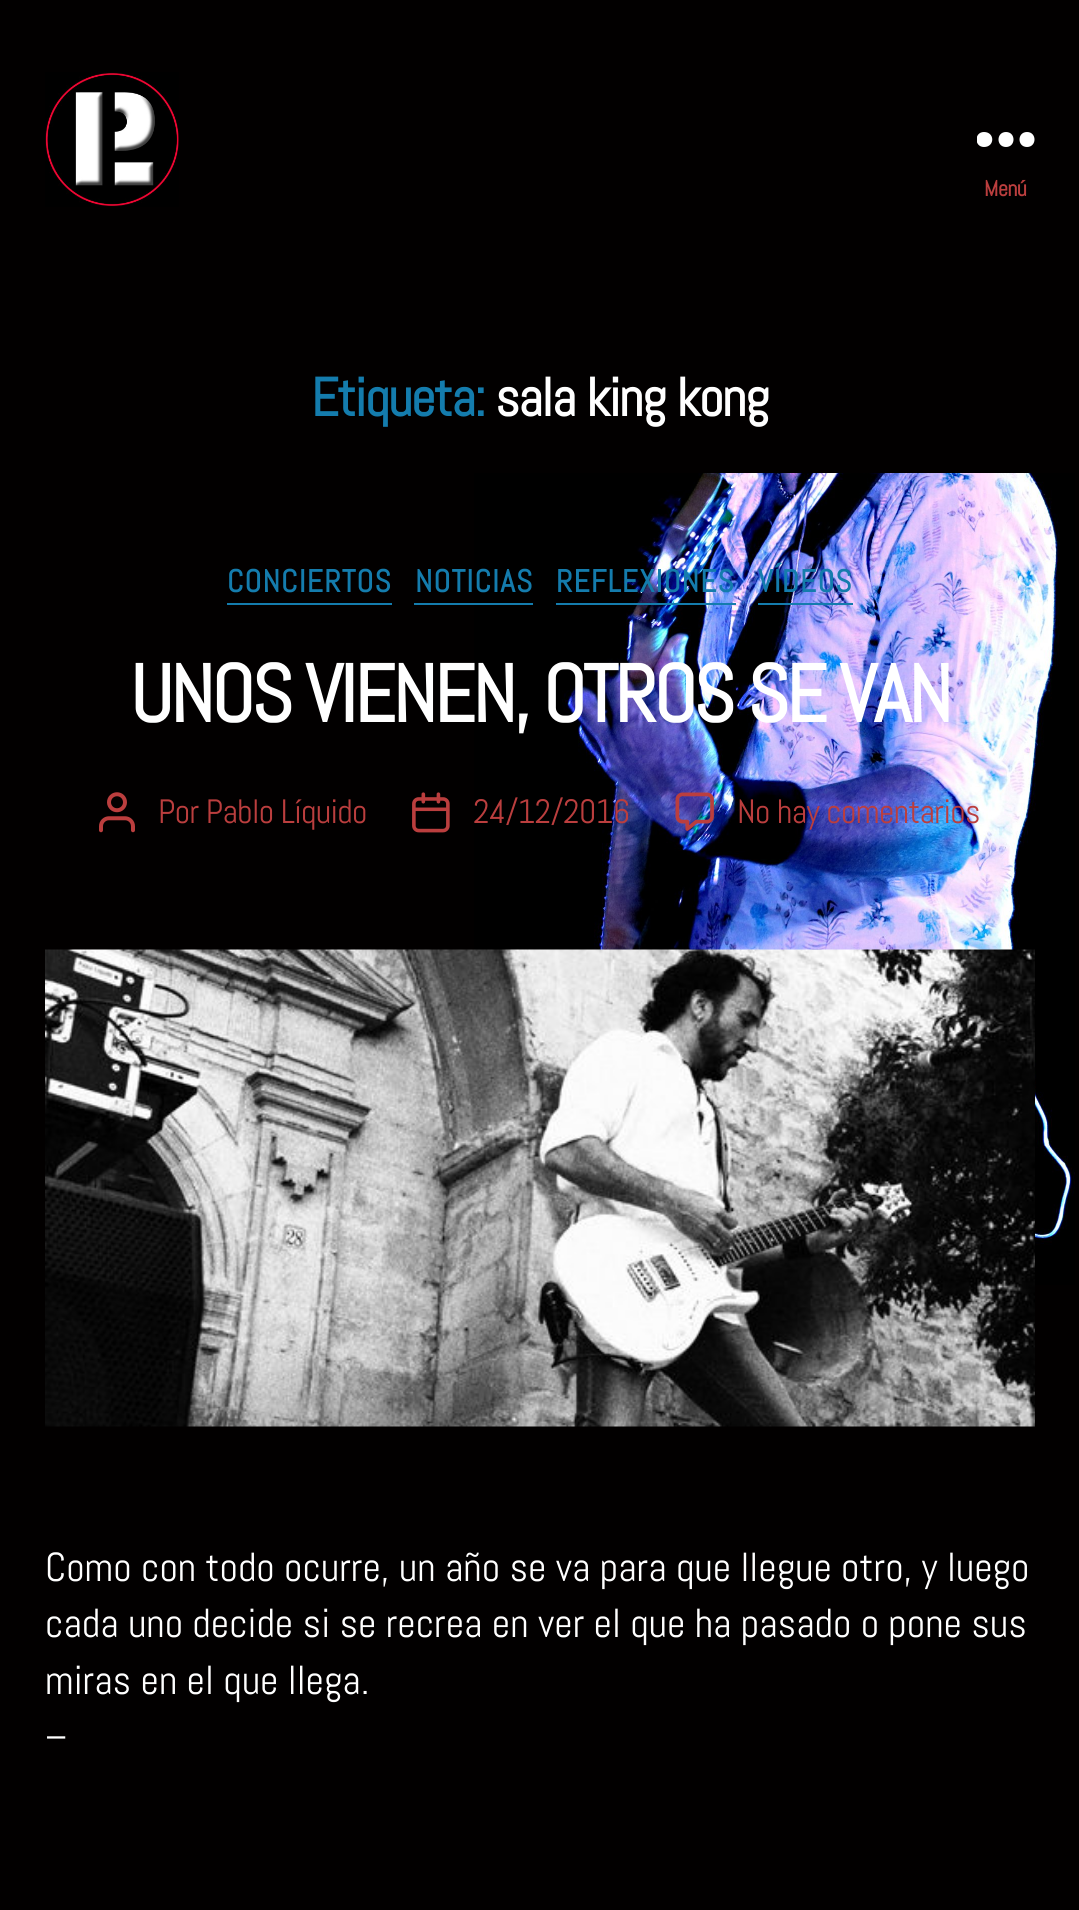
#include <cairo/cairo.h>
#include <math.h>
#include <stddef.h>

typedef struct { double x, y; const char *s; } line_t;
typedef struct { double x, y, w, h; unsigned color; } box_t;
static cairo_t *cr;

static void rgb(unsigned color)
{
	cairo_set_source_rgb(cr, (color >> 16) / 255.0, (color >> 8 & 255) / 255.0, (color & 255) / 255.0);
}

static void tracked(double x, double y, const char *s, double letter, double word)
{
	cairo_move_to(cr, x, y);
	while (*s) {
		char ch[5] = {0};
		int n = 0;
		do ch[n++] = *s++; while ((*s & 0xC0) == 0x80);
		cairo_show_text(cr, ch);
		cairo_rel_move_to(cr, letter + word * (*ch == ' '), 0);
	}
}

static void image(const char *path, double x, double y, double w, double h)
{
	cairo_surface_t *image = cairo_image_surface_create_from_png(path);
	cairo_save(cr);
	cairo_set_source_surface(cr, image, x, y);
	cairo_rectangle(cr, x, y, w, h);
	cairo_fill(cr);
	cairo_restore(cr);
	cairo_surface_destroy(image);
}

int main(void) {
	cairo_surface_t *surface = cairo_image_surface_create(CAIRO_FORMAT_RGB24, 1079, 1910);
	cr = cairo_create(surface);
	cairo_font_options_t *options = cairo_font_options_create();
	cairo_font_options_set_hint_metrics(options, CAIRO_HINT_METRICS_OFF);
	cairo_font_options_set_hint_style(options, CAIRO_HINT_STYLE_NONE);
	cairo_set_font_options(cr, options);
	cairo_set_miter_limit(cr, 4);
	rgb(0x020000);
	cairo_paint(cr);
	image("img/1.png", 474, 473, 601, 812);
	image("img/2.png", 45, 72, 134, 135);
	cairo_save(cr);
	cairo_rectangle(cr, 977, 131, 58, 18);
	cairo_clip(cr);
	rgb(0xffffff);
	cairo_set_fill_rule(cr, CAIRO_FILL_RULE_EVEN_ODD);
	cairo_new_path(cr);
	cairo_move_to(cr, 984, 147);
	cairo_curve_to(cr, 974, 147, 974, 132, 984, 132);
	cairo_curve_to(cr, 995, 132, 995, 147, 984, 147);
	cairo_close_path(cr);
	cairo_move_to(cr, 1006, 147);
	cairo_curve_to(cr, 996, 147, 996, 132, 1006, 132);
	cairo_curve_to(cr, 1016, 132, 1016, 147, 1006, 147);
	cairo_close_path(cr);
	cairo_move_to(cr, 1027, 147);
	cairo_curve_to(cr, 1017, 147, 1017, 132, 1027, 132);
	cairo_curve_to(cr, 1037, 132, 1037, 147, 1027, 147);
	cairo_close_path(cr);
	cairo_fill(cr);
	cairo_restore(cr);
	{
		static const box_t items[] = {
			{227, 603, 165, 2, 0x147cad},
			{414, 603, 119, 2, 0x147cad},
			{556, 603, 180, 2, 0x147cad},
			{758, 603, 95, 2, 0x147cad},
		};
		for (size_t i = 0; i < sizeof items / sizeof *items; i++) {
			rgb(items[i].color);
			cairo_rectangle(cr, items[i].x, items[i].y, items[i].w, items[i].h);
			cairo_fill(cr);
		}
	}
	image("img/3.png", 99, 792, 36, 41);
	image("img/4.png", 412, 792, 38, 41);
	image("img/5.png", 675, 792, 39, 39);
	image("img/6.png", 45, 949, 990, 478);
	cairo_select_font_face(cr, "Abel", CAIRO_FONT_SLANT_NORMAL, CAIRO_FONT_WEIGHT_BOLD);
	cairo_set_font_size(cr, 22);
	rgb(0xbb3e3e);
	tracked(984, 196, "Menú", -0.5, 0);
	cairo_set_font_size(cr, 54);
	rgb(0x147cad);
	tracked(311, 416, "Etiqueta:", -1.5, 0);
	rgb(0xffffff);
	tracked(495, 416, "sala king kong", -1.5, 0);
	cairo_set_font_size(cr, 31.5);
	rgb(0x147cad);
	{
		static const line_t items[] = {
			{227, 592, "CONCIERTOS"},
			{415, 592, "NOTICIAS"},
			{556, 592, "REFLEXIONES"},
			{758, 592, "VÍDEOS"},
		};
		for (size_t i = 0; i < sizeof items / sizeof *items; i++) {
			tracked(items[i].x, items[i].y, items[i].s, 1.1, 0);
		}
	}
	cairo_set_font_size(cr, 81);
	rgb(0xffffff);
	tracked(130, 722, "UNOS VIENEN, OTROS SE VAN", -3.4, 0);
	cairo_select_font_face(cr, "Abel", CAIRO_FONT_SLANT_NORMAL, CAIRO_FONT_WEIGHT_NORMAL);
	cairo_set_font_size(cr, 33.75);
	rgb(0xbb3e3e);
	{
		static const line_t items[] = {
			{158, 823, "Por Pablo Líquido"},
			{473, 823, "24/12/2016"},
			{737, 823, "No hay comentarios"},
		};
		for (size_t i = 0; i < sizeof items / sizeof *items; i++) {
			tracked(items[i].x, items[i].y, items[i].s, -0.6, 0);
		}
	}
	cairo_set_font_size(cr, 40.5);
	rgb(0xffffff);
	{
		static const line_t items[] = {
			{45, 1581, "Como con todo ocurre, un año se va para que llegue otro, y luego"},
			{45, 1637, "cada uno decide si se recrea en ver el que ha pasado o pone sus"},
			{45, 1694, "miras en el que llega."},
			{45, 1751, "–"},
		};
		for (size_t i = 0; i < sizeof items / sizeof *items; i++) {
			cairo_move_to(cr, items[i].x, items[i].y);
			cairo_show_text(cr, items[i].s);
		}
	}
	cairo_surface_write_to_png(surface, "page.png");
	cairo_font_options_destroy(options);
	cairo_destroy(cr);
	cairo_surface_destroy(surface);
	return 0;
}
